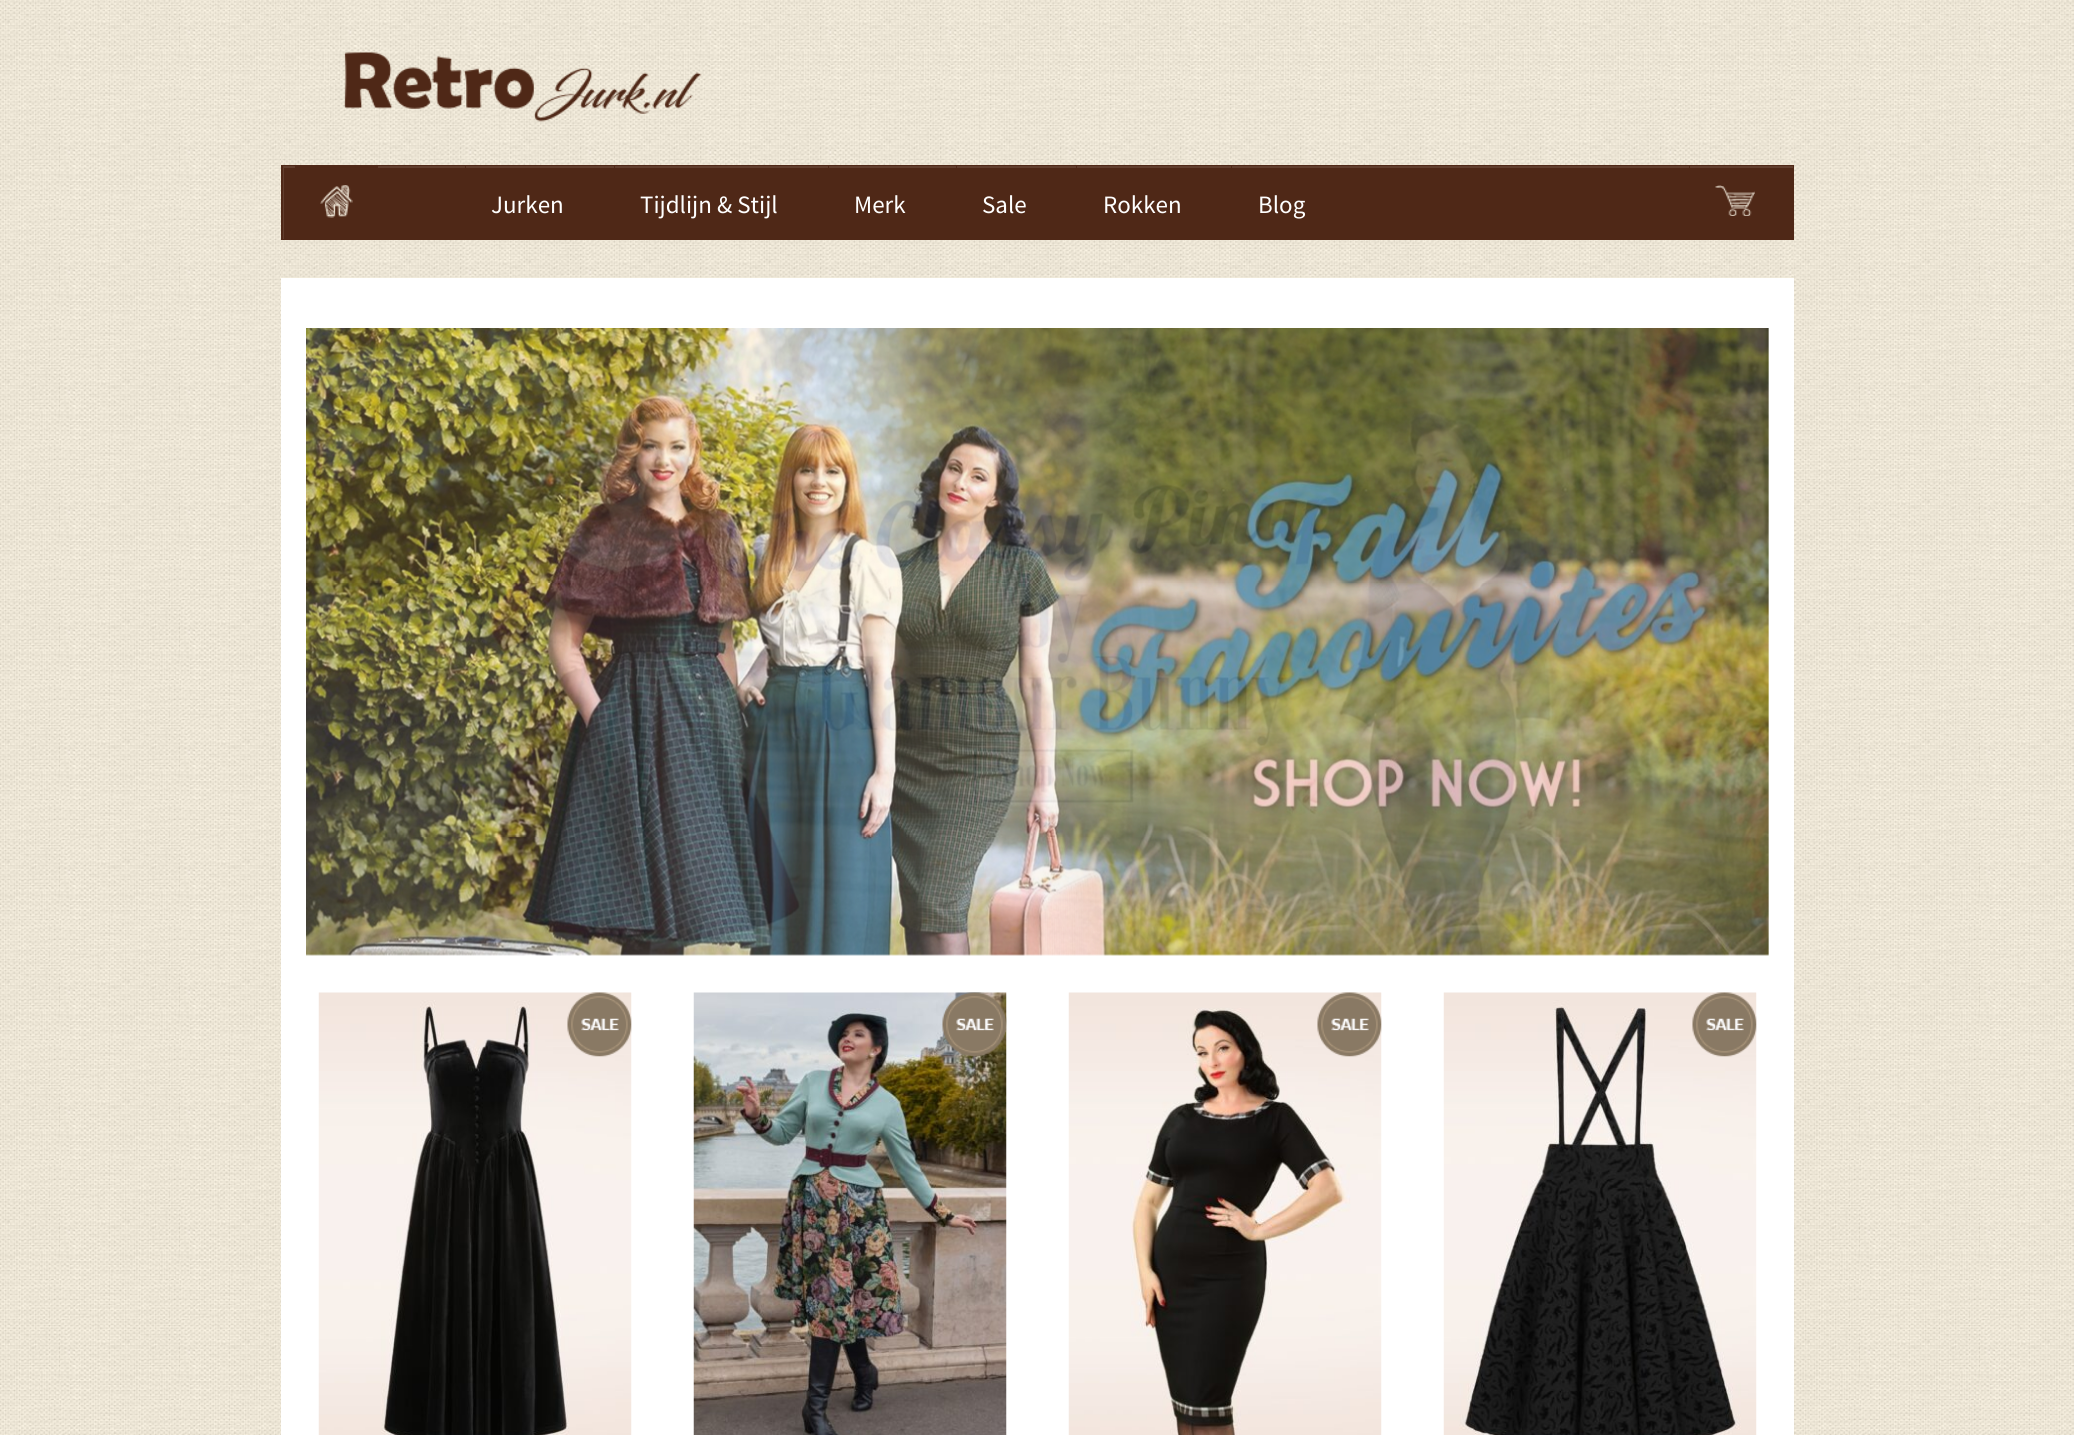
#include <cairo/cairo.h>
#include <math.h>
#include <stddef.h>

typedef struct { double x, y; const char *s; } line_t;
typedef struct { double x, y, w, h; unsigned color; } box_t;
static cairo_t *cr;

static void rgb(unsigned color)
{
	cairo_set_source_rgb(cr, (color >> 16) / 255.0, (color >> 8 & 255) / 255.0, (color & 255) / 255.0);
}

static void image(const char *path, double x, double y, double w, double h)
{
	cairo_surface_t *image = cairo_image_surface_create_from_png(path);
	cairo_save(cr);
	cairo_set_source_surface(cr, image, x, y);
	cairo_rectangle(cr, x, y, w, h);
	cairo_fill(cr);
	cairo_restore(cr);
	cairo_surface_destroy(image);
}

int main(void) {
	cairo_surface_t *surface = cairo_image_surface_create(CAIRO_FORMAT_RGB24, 2074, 1435);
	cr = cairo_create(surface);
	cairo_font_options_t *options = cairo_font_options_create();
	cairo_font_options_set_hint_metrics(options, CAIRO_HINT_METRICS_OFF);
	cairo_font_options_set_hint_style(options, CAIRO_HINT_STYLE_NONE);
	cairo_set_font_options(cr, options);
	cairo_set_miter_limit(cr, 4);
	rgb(0xffffff);
	cairo_paint(cr);
	image("img/1.png", 0, 0, 2074, 1435);
	rgb(0xffffff);
	cairo_rectangle(cr, 281, 278, 1513, 1157);
	cairo_fill(cr);
	rgb(0xf3ecda);
	cairo_rectangle(cr, 281, 0, 1513, 278);
	cairo_fill(cr);
	image("img/2.png", 281, 0, 1513, 278);
	image("img/3.png", 343, 52, 359, 70);
	rgb(0x4f2817);
	cairo_rectangle(cr, 281, 165, 1513, 75);
	cairo_fill(cr);
	cairo_save(cr);
	cairo_rectangle(cr, 283, 166, 1510, 73);
	cairo_clip(cr);
	rgb(0x613e2e);
	cairo_set_fill_rule(cr, CAIRO_FILL_RULE_EVEN_ODD);
	cairo_new_path(cr);
	cairo_move_to(cr, 159, 42);
	cairo_line_to(cr, 1916, 42);
	cairo_line_to(cr, 1916, 362);
	cairo_line_to(cr, 159, 362);
	cairo_close_path(cr);
	cairo_move_to(cr, 284, 168);
	cairo_line_to(cr, 1794, 168);
	cairo_line_to(cr, 1794, 240);
	cairo_line_to(cr, 284, 240);
	cairo_close_path(cr);
	cairo_fill(cr);
	cairo_restore(cr);
	cairo_rectangle(cr, 295, 166, 83, 2);
	cairo_fill(cr);
	image("img/4.png", 320, 185, 33, 33);
	{
		static const box_t items[] = {
			{465, 166, 1, 2, 0x4f2817},
			{614, 166, 1, 2, 0x4f2817},
			{828, 166, 1, 2, 0x4f2817},
			{956, 166, 1, 2, 0x4f2817},
			{1076, 166, 1, 2, 0x4f2817},
			{1231, 166, 1, 2, 0x4f2817},
			{1689, 166, 1, 2, 0x4f2817},
		};
		for (size_t i = 0; i < sizeof items / sizeof *items; i++) {
			rgb(items[i].color);
			cairo_rectangle(cr, items[i].x, items[i].y, items[i].w, items[i].h);
			cairo_fill(cr);
		}
	}
	image("img/5.png", 1715, 185, 40, 31);
	image("img/6.png", 306, 328, 1463, 628);
	image("img/7.png", 306, 328, 1463, 628);
	image("img/8.png", 318, 992, 314, 443);
	image("img/9.png", 567, 992, 65, 65);
	image("img/10.png", 693, 992, 314, 443);
	image("img/11.png", 942, 992, 65, 65);
	image("img/12.png", 1068, 992, 314, 443);
	image("img/13.png", 1317, 992, 65, 65);
	image("img/14.png", 1443, 992, 314, 443);
	image("img/15.png", 1692, 992, 65, 65);
	cairo_select_font_face(cr, "Source Sans Pro", CAIRO_FONT_SLANT_NORMAL, CAIRO_FONT_WEIGHT_NORMAL);
	cairo_set_font_size(cr, 25);
	rgb(0xffffff);
	{
		static const line_t items[] = {
			{491, 213, "Jurken"},
			{640, 213, "Tijdlijn & Stijl"},
			{854, 213, "Merk"},
			{982, 213, "Sale"},
			{1103, 213, "Rokken"},
			{1258, 213, "Blog"},
		};
		for (size_t i = 0; i < sizeof items / sizeof *items; i++) {
			cairo_move_to(cr, items[i].x, items[i].y);
			cairo_show_text(cr, items[i].s);
		}
	}
	cairo_surface_write_to_png(surface, "page.png");
	cairo_font_options_destroy(options);
	cairo_destroy(cr);
	cairo_surface_destroy(surface);
	return 0;
}
